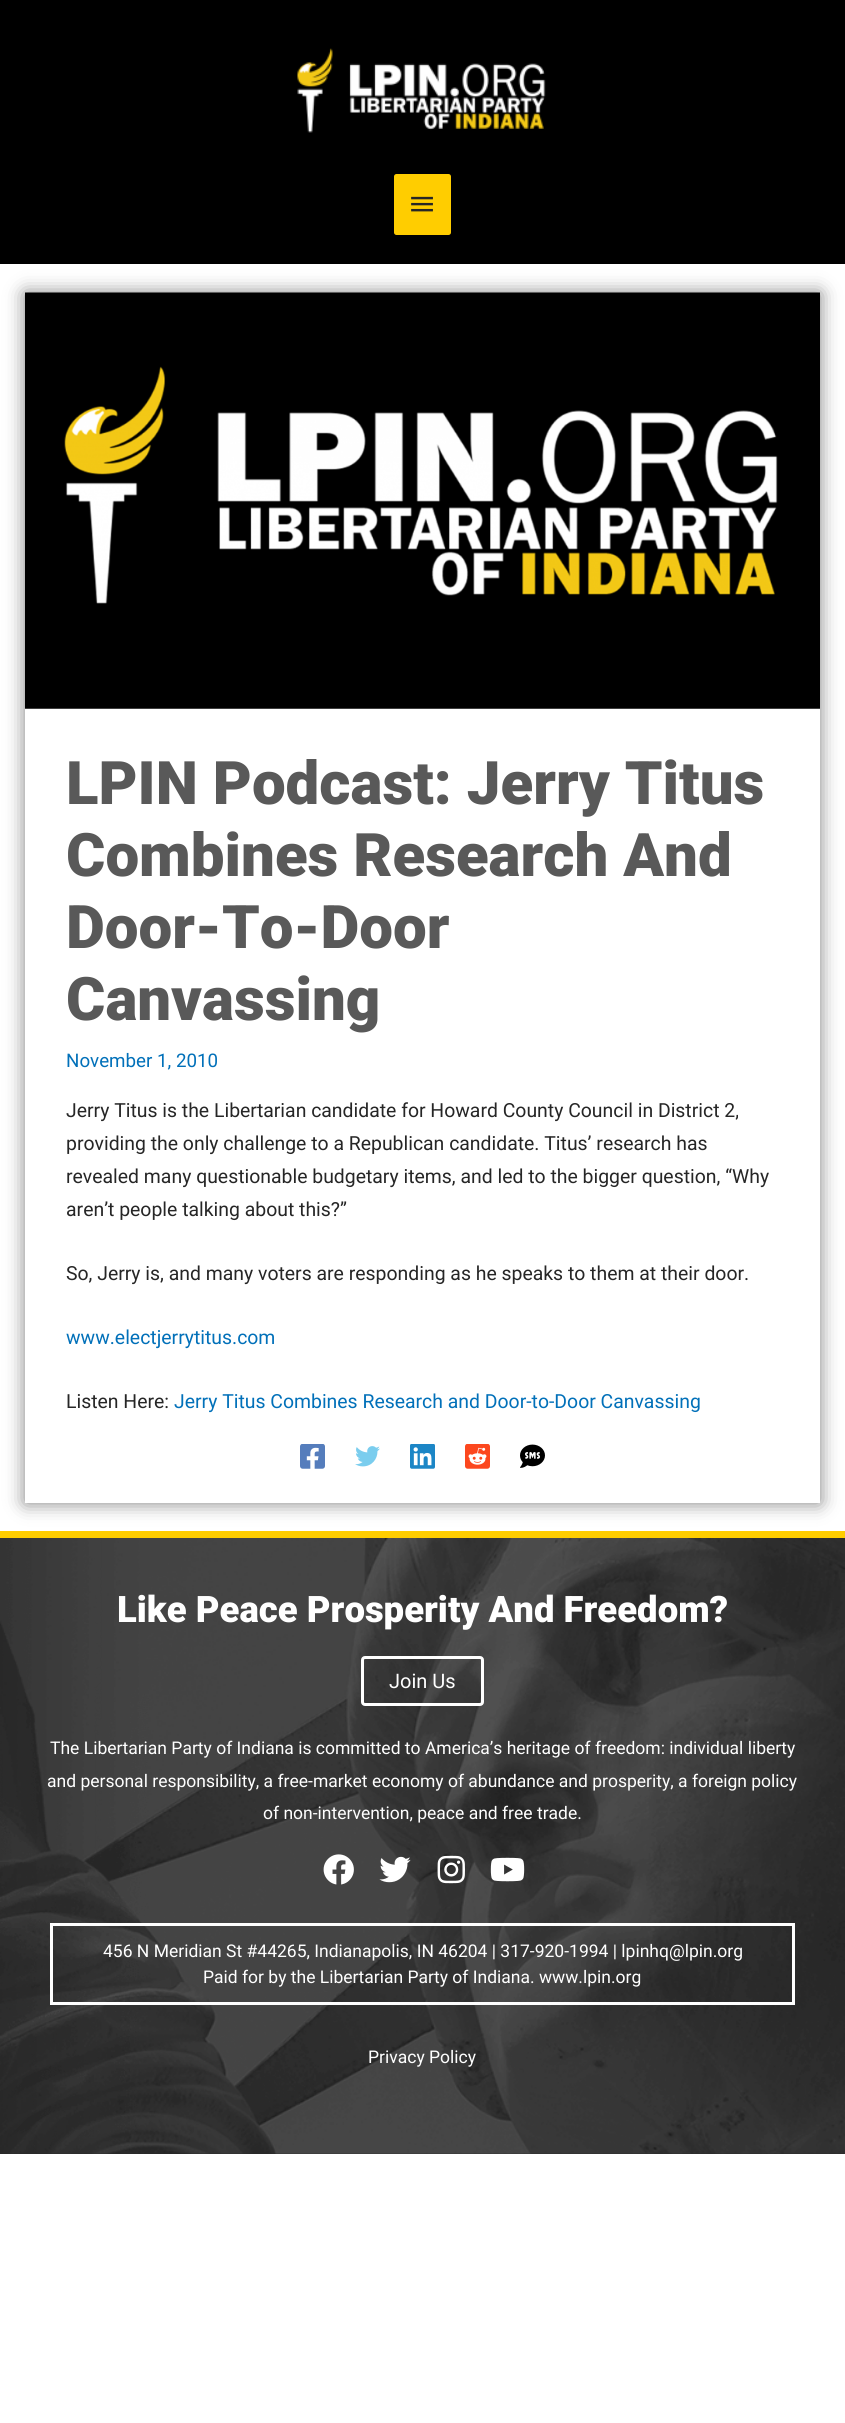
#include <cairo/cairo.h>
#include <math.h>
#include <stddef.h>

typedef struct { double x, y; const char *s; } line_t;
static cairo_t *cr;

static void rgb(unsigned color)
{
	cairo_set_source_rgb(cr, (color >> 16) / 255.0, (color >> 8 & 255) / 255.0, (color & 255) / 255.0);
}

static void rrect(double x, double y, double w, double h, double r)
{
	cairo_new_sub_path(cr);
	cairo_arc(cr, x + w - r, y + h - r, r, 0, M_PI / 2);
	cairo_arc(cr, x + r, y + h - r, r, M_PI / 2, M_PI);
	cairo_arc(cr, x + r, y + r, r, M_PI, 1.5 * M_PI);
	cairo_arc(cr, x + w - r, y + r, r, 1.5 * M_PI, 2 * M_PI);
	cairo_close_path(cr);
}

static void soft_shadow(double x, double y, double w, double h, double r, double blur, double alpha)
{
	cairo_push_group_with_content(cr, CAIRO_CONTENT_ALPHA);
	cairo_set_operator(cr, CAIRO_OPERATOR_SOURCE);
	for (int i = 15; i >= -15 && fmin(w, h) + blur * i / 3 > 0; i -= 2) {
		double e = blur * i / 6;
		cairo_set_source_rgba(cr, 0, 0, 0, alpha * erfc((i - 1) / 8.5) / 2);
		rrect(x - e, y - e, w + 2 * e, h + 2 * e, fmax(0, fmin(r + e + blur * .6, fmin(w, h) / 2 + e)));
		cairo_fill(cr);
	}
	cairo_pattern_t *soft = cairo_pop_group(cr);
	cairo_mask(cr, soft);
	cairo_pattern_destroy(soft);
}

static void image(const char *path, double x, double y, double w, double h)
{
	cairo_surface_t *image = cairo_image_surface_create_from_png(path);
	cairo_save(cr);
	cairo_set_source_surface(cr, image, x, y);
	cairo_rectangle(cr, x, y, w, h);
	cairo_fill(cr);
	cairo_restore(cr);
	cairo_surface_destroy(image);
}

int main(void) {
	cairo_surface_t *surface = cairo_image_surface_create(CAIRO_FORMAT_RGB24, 845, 2423);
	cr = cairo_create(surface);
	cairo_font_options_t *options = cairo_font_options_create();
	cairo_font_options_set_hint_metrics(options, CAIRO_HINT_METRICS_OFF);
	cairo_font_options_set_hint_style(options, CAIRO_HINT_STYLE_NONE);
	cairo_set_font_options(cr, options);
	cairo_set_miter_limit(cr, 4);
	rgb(0xffffff);
	cairo_paint(cr);
	rgb(0x000000);
	soft_shadow(25, 293, 795, 1210, 0, 9.5, 0.5);
	rgb(0x000000);
	cairo_rectangle(cr, 0, 0, 845, 264);
	cairo_fill(cr);
	image("img/1.png", 297, 48, 249, 85);
	rgb(0xffcd00);
	rrect(394, 174, 57, 61, 2.5);
	cairo_fill(cr);
	image("img/2.png", 411, 196, 22, 16);
	rgb(0xffffff);
	cairo_rectangle(cr, 25, 708, 795, 795);
	cairo_fill(cr);
	image("img/3.png", 25, 292, 795, 417);
	image("img/4.png", 300, 1444, 25, 25);
	image("img/5.png", 355, 1446, 25, 21);
	image("img/6.png", 410, 1444, 25, 25);
	image("img/7.png", 465, 1444, 25, 25);
	image("img/8.png", 520, 1444, 25, 24);
	rgb(0x262626);
	cairo_rectangle(cr, 0, 1538, 845, 616);
	cairo_fill(cr);
	image("img/9.png", 0, 1538, 845, 616);
	rgb(0xffcd00);
	cairo_rectangle(cr, 0, 1531, 845, 7);
	cairo_fill(cr);
	rrect(362.5, 1657.5, 120, 47, 2.5);
	rgb(0xffffff);
	cairo_set_line_width(cr, 3);
	cairo_stroke(cr);
	image("img/10.png", 323, 1854, 31, 31);
	image("img/11.png", 379, 1856, 32, 27);
	image("img/12.png", 437, 1855, 28, 29);
	image("img/13.png", 490, 1857, 35, 25);
	cairo_rectangle(cr, 51.5, 1924.5, 742, 79);
	cairo_stroke(cr);
	cairo_select_font_face(cr, "Roboto Black", CAIRO_FONT_SLANT_NORMAL, CAIRO_FONT_WEIGHT_NORMAL);
	cairo_set_font_size(cr, 60);
	rgb(0x595959);
	{
		static const line_t items[] = {
			{66, 804, "LPIN Podcast: Jerry Titus"},
			{66, 876, "Combines Research And"},
			{66, 948, "Door-To-Door"},
			{66, 1020, "Canvassing"},
		};
		for (size_t i = 0; i < sizeof items / sizeof *items; i++) {
			cairo_move_to(cr, items[i].x, items[i].y);
			cairo_show_text(cr, items[i].s);
		}
	}
	cairo_select_font_face(cr, "Roboto", CAIRO_FONT_SLANT_NORMAL, CAIRO_FONT_WEIGHT_NORMAL);
	cairo_set_font_size(cr, 18.75);
	rgb(0x0170b9);
	cairo_move_to(cr, 66, 1067);
	cairo_show_text(cr, "November 1, 2010");
	cairo_set_font_size(cr, 19.4);
	rgb(0x262626);
	{
		static const line_t items[] = {
			{66, 1117, "Jerry Titus is the Libertarian candidate for Howard County Council in District 2,"},
			{66, 1150, "providing the only challenge to a Republican candidate. Titus’ research has"},
			{66, 1183, "revealed many questionable budgetary items, and led to the bigger question, “Why"},
			{66, 1216, "aren’t people talking about this?”"},
			{66, 1280, "So, Jerry is, and many voters are responding as he speaks to them at their door."},
		};
		for (size_t i = 0; i < sizeof items / sizeof *items; i++) {
			cairo_move_to(cr, items[i].x, items[i].y);
			cairo_show_text(cr, items[i].s);
		}
	}
	rgb(0x0170b9);
	cairo_move_to(cr, 66, 1344);
	cairo_show_text(cr, "www.electjerrytitus.com");
	rgb(0x262626);
	cairo_move_to(cr, 66, 1408);
	cairo_show_text(cr, "Listen Here:");
	rgb(0x0170b9);
	cairo_move_to(cr, 174, 1408);
	cairo_show_text(cr, "Jerry Titus Combines Research and Door-to-Door Canvassing");
	cairo_select_font_face(cr, "Roboto Black", CAIRO_FONT_SLANT_NORMAL, CAIRO_FONT_WEIGHT_NORMAL);
	cairo_set_font_size(cr, 36.5);
	rgb(0xffffff);
	cairo_move_to(cr, 117, 1622);
	cairo_show_text(cr, "Like Peace Prosperity And Freedom?");
	cairo_select_font_face(cr, "Roboto", CAIRO_FONT_SLANT_NORMAL, CAIRO_FONT_WEIGHT_NORMAL);
	cairo_set_font_size(cr, 20);
	cairo_move_to(cr, 389, 1688);
	cairo_show_text(cr, "Join Us");
	cairo_set_font_size(cr, 17.5);
	{
		static const line_t items[] = {
			{50, 1754, "The Libertarian Party of Indiana is committed to America’s heritage of freedom: individual liberty"},
			{47, 1787, "and personal responsibility, a free-market economy of abundance and prosperity, a foreign policy"},
			{263, 1819, "of non-intervention, peace and free trade."},
			{103, 1957, "456 N Meridian St #44265, Indianapolis, IN 46204 | 317-920-1994 | lpinhq@lpin.org"},
			{203, 1983, "Paid for by the Libertarian Party of Indiana. www.lpin.org"},
			{368, 2063, "Privacy Policy"},
		};
		for (size_t i = 0; i < sizeof items / sizeof *items; i++) {
			cairo_move_to(cr, items[i].x, items[i].y);
			cairo_show_text(cr, items[i].s);
		}
	}
	cairo_surface_write_to_png(surface, "page.png");
	cairo_font_options_destroy(options);
	cairo_destroy(cr);
	cairo_surface_destroy(surface);
	return 0;
}
